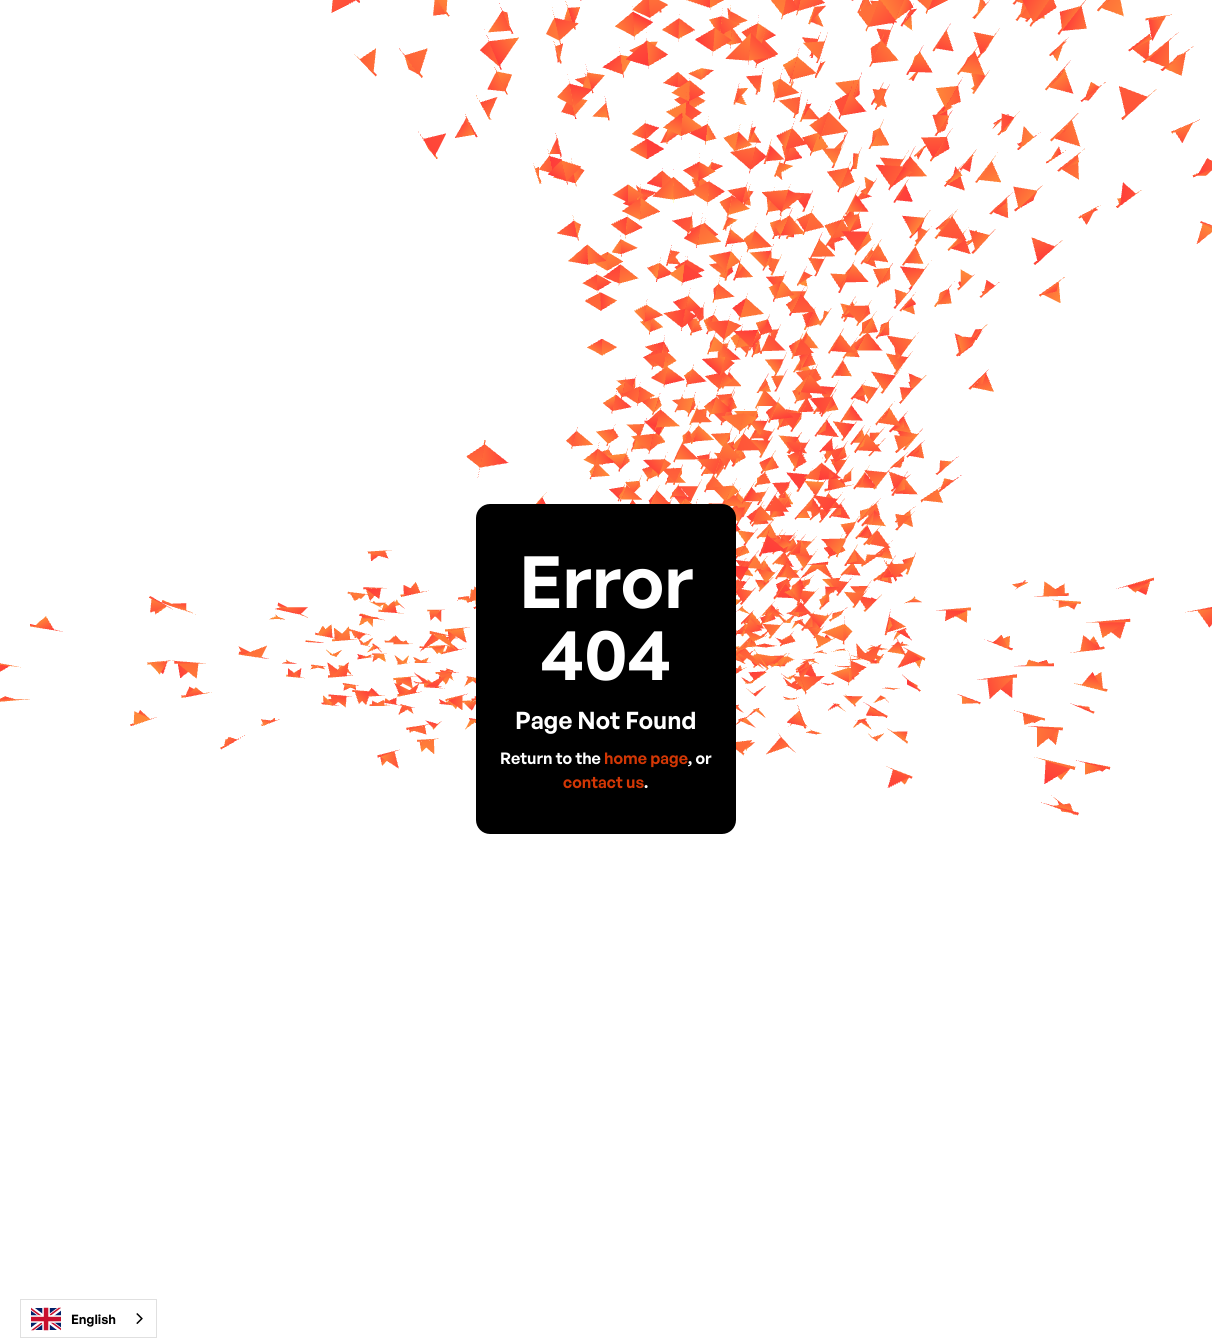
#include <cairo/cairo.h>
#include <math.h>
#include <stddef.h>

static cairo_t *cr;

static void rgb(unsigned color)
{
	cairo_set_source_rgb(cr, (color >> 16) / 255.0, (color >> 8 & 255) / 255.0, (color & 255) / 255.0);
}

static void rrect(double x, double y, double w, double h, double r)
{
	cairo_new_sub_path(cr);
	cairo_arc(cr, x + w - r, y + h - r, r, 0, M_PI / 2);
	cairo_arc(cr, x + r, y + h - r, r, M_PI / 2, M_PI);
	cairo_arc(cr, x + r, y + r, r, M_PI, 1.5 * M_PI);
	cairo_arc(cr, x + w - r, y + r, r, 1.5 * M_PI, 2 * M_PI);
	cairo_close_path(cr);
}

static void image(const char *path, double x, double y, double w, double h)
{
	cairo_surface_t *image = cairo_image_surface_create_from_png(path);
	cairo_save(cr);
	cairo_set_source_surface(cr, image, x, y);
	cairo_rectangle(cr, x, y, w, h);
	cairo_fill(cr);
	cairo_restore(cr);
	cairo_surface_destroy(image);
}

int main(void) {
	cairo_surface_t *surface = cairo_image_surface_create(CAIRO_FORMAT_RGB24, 1212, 1338);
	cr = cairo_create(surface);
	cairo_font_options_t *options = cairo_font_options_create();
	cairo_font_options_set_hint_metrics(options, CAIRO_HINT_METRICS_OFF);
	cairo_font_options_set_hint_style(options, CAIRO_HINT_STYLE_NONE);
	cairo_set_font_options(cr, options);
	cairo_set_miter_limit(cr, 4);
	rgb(0xffffff);
	cairo_paint(cr);
	image("img/1.png", 0, 0, 1212, 1338);
	rgb(0x000000);
	rrect(476, 504, 260, 330, 14);
	cairo_fill(cr);
	cairo_rectangle(cr, 20.5, 1299.5, 136, 38);
	rgb(0xe0e0e0);
	cairo_set_line_width(cr, 1);
	cairo_stroke(cr);
	image("img/2.png", 31, 1307, 30, 24);
	image("img/3.png", 136, 1313, 7, 11);
	cairo_select_font_face(cr, "General Sans SemiBold", CAIRO_FONT_SLANT_NORMAL, CAIRO_FONT_WEIGHT_NORMAL);
	cairo_set_font_size(cr, 72);
	rgb(0xffffff);
	cairo_move_to(cr, 519, 608);
	cairo_show_text(cr, "Error");
	cairo_move_to(cr, 541, 680);
	cairo_show_text(cr, "404");
	cairo_set_font_size(cr, 24);
	cairo_move_to(cr, 515, 729);
	cairo_show_text(cr, "Page Not Found");
	cairo_set_font_size(cr, 16);
	cairo_move_to(cr, 500, 764);
	cairo_show_text(cr, "Return to the");
	rgb(0xd33705);
	cairo_move_to(cr, 604, 764);
	cairo_show_text(cr, "home page");
	rgb(0xffffff);
	cairo_move_to(cr, 688, 764);
	cairo_show_text(cr, ", or");
	rgb(0xd33705);
	cairo_move_to(cr, 563, 788);
	cairo_show_text(cr, "contact us");
	rgb(0xffffff);
	cairo_move_to(cr, 644, 788);
	cairo_show_text(cr, ".");
	cairo_set_font_size(cr, 13);
	rgb(0x000000);
	cairo_move_to(cr, 71, 1324);
	cairo_show_text(cr, "English");
	cairo_surface_write_to_png(surface, "page.png");
	cairo_font_options_destroy(options);
	cairo_destroy(cr);
	cairo_surface_destroy(surface);
	return 0;
}
